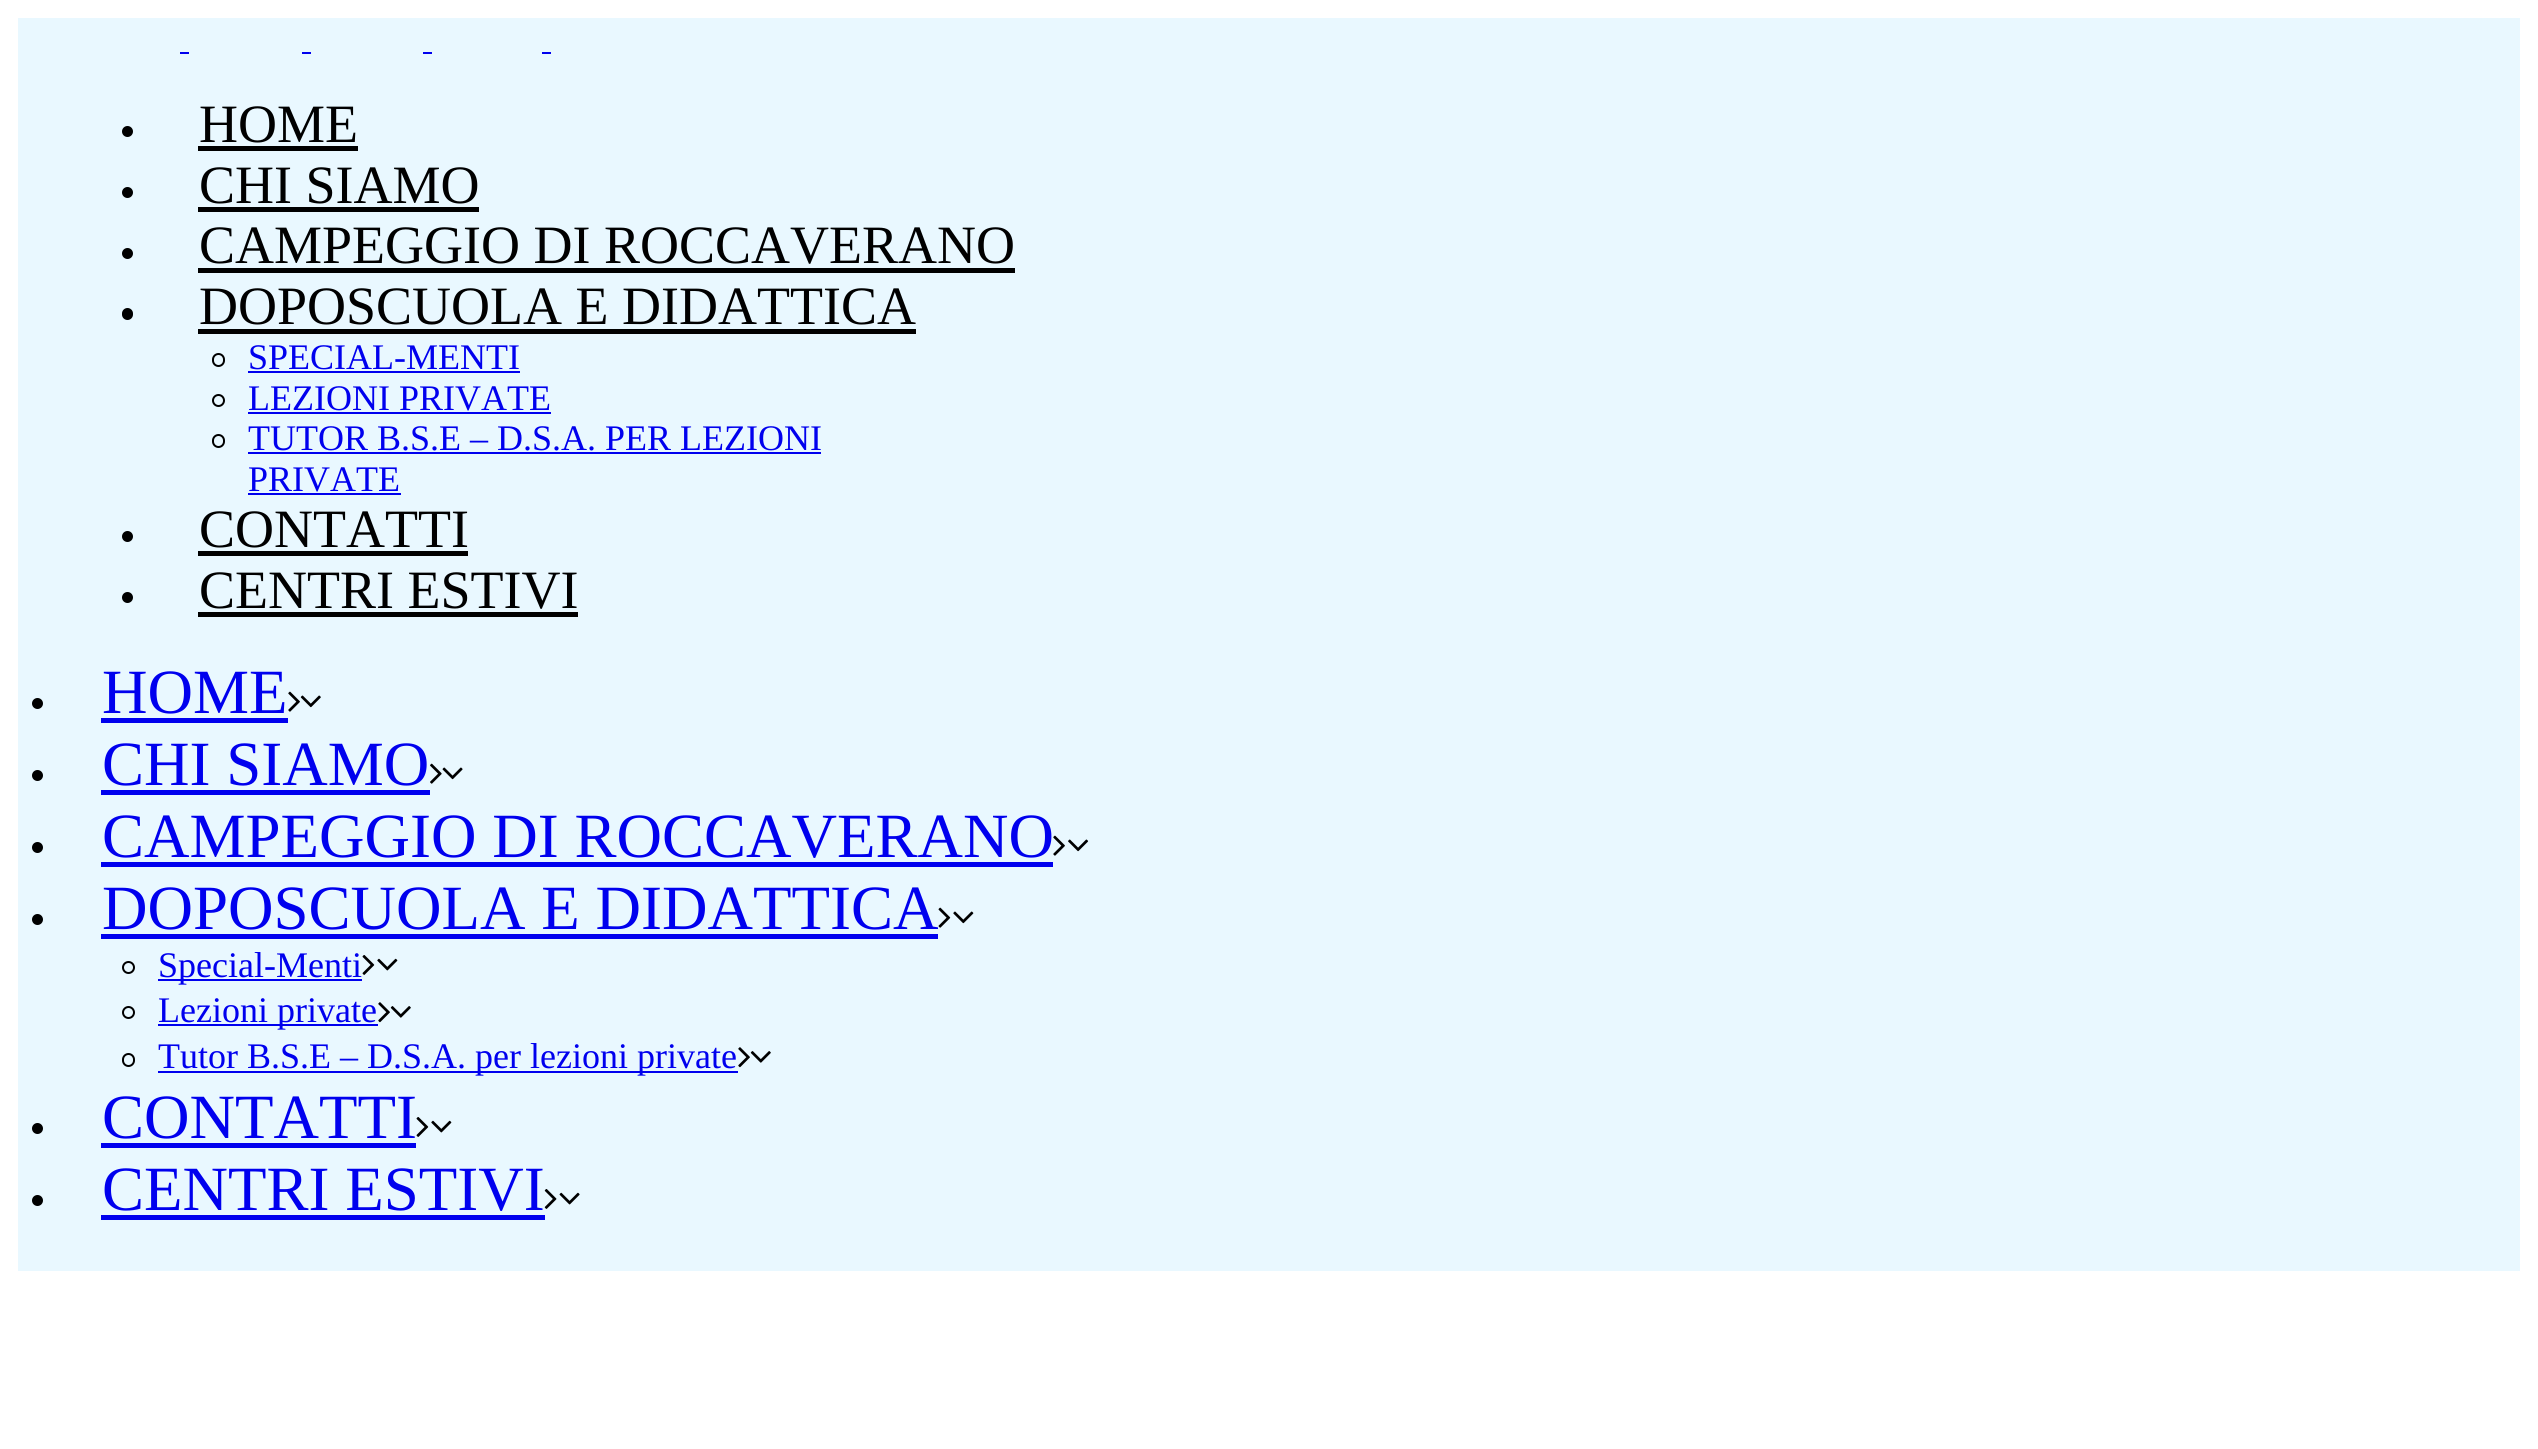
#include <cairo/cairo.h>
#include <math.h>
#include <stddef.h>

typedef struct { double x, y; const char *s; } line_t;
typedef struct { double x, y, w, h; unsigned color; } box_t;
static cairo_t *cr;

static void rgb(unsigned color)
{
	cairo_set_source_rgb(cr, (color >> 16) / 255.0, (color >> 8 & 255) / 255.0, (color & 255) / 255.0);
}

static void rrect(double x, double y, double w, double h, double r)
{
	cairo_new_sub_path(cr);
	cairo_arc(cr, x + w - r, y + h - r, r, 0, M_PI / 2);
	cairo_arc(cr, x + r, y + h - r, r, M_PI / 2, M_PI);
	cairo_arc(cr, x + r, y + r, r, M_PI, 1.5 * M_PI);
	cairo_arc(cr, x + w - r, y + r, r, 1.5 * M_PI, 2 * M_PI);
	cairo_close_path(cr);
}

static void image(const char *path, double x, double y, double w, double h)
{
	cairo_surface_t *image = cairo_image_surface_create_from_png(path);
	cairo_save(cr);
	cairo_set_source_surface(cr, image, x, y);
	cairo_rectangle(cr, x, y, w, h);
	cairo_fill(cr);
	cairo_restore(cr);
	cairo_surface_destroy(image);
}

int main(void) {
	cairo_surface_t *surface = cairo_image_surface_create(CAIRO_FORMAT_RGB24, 2538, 1449);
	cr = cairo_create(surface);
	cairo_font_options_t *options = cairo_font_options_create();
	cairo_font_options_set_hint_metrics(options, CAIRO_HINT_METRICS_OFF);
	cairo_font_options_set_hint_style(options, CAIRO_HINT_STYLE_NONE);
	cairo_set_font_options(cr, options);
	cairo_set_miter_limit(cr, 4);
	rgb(0xffffff);
	cairo_paint(cr);
	{
		static const box_t items[] = {
			{18, 18, 2502, 1253, 0xe9f8ff},
			{180, 52, 9, 2, 0x0000ee},
			{302, 52, 9, 2, 0x0000ee},
			{423, 52, 9, 2, 0x0000ee},
			{542, 52, 9, 2, 0x0000ee},
		};
		for (size_t i = 0; i < sizeof items / sizeof *items; i++) {
			rgb(items[i].color);
			cairo_rectangle(cr, items[i].x, items[i].y, items[i].w, items[i].h);
			cairo_fill(cr);
		}
	}
	rgb(0x000000);
	cairo_arc(cr, 127.5, 131.5, 5.5, 0, 2 * M_PI);
	cairo_fill(cr);
	cairo_rectangle(cr, 198, 146, 160, 5);
	cairo_fill(cr);
	cairo_arc(cr, 127.5, 192.5, 5.5, 0, 2 * M_PI);
	cairo_fill(cr);
	cairo_rectangle(cr, 198, 207, 281, 5);
	cairo_fill(cr);
	cairo_arc(cr, 127.5, 253.5, 5.5, 0, 2 * M_PI);
	cairo_fill(cr);
	cairo_rectangle(cr, 198, 268, 817, 5);
	cairo_fill(cr);
	rrect(122, 308, 11, 12, 5.5);
	cairo_fill(cr);
	cairo_rectangle(cr, 198, 329, 718, 5);
	cairo_fill(cr);
	rrect(213, 354, 11, 12, 5.5);
	cairo_stroke(cr);
	rgb(0x0000ee);
	cairo_rectangle(cr, 248, 371, 272, 2);
	cairo_fill(cr);
	cairo_arc(cr, 218.5, 400.5, 5.5, 0, 2 * M_PI);
	rgb(0x000000);
	cairo_stroke(cr);
	rgb(0x0000ee);
	cairo_rectangle(cr, 248, 412, 303, 2);
	cairo_fill(cr);
	rrect(213, 435, 11, 12, 5.5);
	rgb(0x000000);
	cairo_stroke(cr);
	rgb(0x0000ee);
	cairo_rectangle(cr, 248, 452, 573, 2);
	cairo_fill(cr);
	cairo_rectangle(cr, 248, 493, 153, 2);
	cairo_fill(cr);
	rgb(0x000000);
	cairo_arc(cr, 127.5, 536.5, 5.5, 0, 2 * M_PI);
	cairo_fill(cr);
	cairo_rectangle(cr, 198, 551, 270, 5);
	cairo_fill(cr);
	cairo_arc(cr, 127.5, 597.5, 5.5, 0, 2 * M_PI);
	cairo_fill(cr);
	cairo_rectangle(cr, 198, 612, 380, 5);
	cairo_fill(cr);
	cairo_arc(cr, 37.5, 703.5, 5.5, 0, 2 * M_PI);
	cairo_fill(cr);
	rgb(0x0000ee);
	cairo_rectangle(cr, 101, 718, 187, 5);
	cairo_fill(cr);
	image("img/1.png", 288, 691, 12, 21);
	image("img/2.png", 300, 695, 21, 13);
	rgb(0x000000);
	cairo_arc(cr, 37.5, 775.5, 5.5, 0, 2 * M_PI);
	cairo_fill(cr);
	rgb(0x0000ee);
	cairo_rectangle(cr, 101, 790, 329, 5);
	cairo_fill(cr);
	image("img/3.png", 430, 763, 12, 21);
	image("img/4.png", 442, 767, 21, 13);
	rgb(0x000000);
	cairo_arc(cr, 37.5, 847.5, 5.5, 0, 2 * M_PI);
	cairo_fill(cr);
	rgb(0x0000ee);
	cairo_rectangle(cr, 101, 862, 952, 5);
	cairo_fill(cr);
	image("img/1.png", 1053, 835, 12, 21);
	image("img/5.png", 1068, 839, 21, 13);
	rgb(0x000000);
	cairo_arc(cr, 37.5, 919.5, 5.5, 0, 2 * M_PI);
	cairo_fill(cr);
	rgb(0x0000ee);
	cairo_rectangle(cr, 101, 934, 837, 5);
	cairo_fill(cr);
	image("img/6.png", 938, 907, 13, 21);
	image("img/7.png", 953, 911, 21, 13);
	cairo_arc(cr, 128.5, 967.5, 5.5, 0, 2 * M_PI);
	rgb(0x000000);
	cairo_stroke(cr);
	rgb(0x0000ee);
	cairo_rectangle(cr, 158, 979, 204, 2);
	cairo_fill(cr);
	image("img/8.png", 362, 955, 13, 20);
	image("img/9.png", 377, 958, 21, 13);
	cairo_arc(cr, 128.5, 1012.5, 5.5, 0, 2 * M_PI);
	rgb(0x000000);
	cairo_stroke(cr);
	rgb(0x0000ee);
	cairo_rectangle(cr, 158, 1024, 220, 2);
	cairo_fill(cr);
	image("img/10.png", 378, 1002, 12, 21);
	image("img/11.png", 390, 1006, 21, 12);
	rrect(123, 1054, 11, 12, 5.5);
	rgb(0x000000);
	cairo_stroke(cr);
	rgb(0x0000ee);
	cairo_rectangle(cr, 158, 1071, 580, 2);
	cairo_fill(cr);
	image("img/10.png", 738, 1047, 12, 21);
	image("img/11.png", 750, 1051, 21, 12);
	rgb(0x000000);
	cairo_arc(cr, 37.5, 1128.5, 5.5, 0, 2 * M_PI);
	cairo_fill(cr);
	rgb(0x0000ee);
	cairo_rectangle(cr, 101, 1143, 315, 5);
	cairo_fill(cr);
	image("img/8.png", 416, 1117, 13, 20);
	image("img/9.png", 431, 1120, 21, 13);
	rgb(0x000000);
	cairo_arc(cr, 37.5, 1200.5, 5.5, 0, 2 * M_PI);
	cairo_fill(cr);
	rgb(0x0000ee);
	cairo_rectangle(cr, 101, 1215, 444, 5);
	cairo_fill(cr);
	image("img/12.png", 544, 1189, 13, 20);
	image("img/13.png", 559, 1192, 21, 13);
	cairo_select_font_face(cr, "Liberation Serif", CAIRO_FONT_SLANT_NORMAL, CAIRO_FONT_WEIGHT_NORMAL);
	cairo_set_font_size(cr, 54);
	rgb(0x000000);
	{
		static const line_t items[] = {
			{199, 142, "HOME"},
			{199, 203, "CHI SIAMO"},
			{199, 263, "CAMPEGGIO DI ROCCAVERANO"},
			{199, 324, "DOPOSCUOLA E DIDATTICA"},
		};
		for (size_t i = 0; i < sizeof items / sizeof *items; i++) {
			cairo_move_to(cr, items[i].x, items[i].y);
			cairo_show_text(cr, items[i].s);
		}
	}
	cairo_set_font_size(cr, 36);
	rgb(0x0000ee);
	{
		static const line_t items[] = {
			{248, 369, "SPECIAL-MENTI"},
			{248, 410, "LEZIONI PRIVATE"},
			{248, 450, "TUTOR B.S.E – D.S.A. PER LEZIONI"},
			{248, 491, "PRIVATE"},
		};
		for (size_t i = 0; i < sizeof items / sizeof *items; i++) {
			cairo_move_to(cr, items[i].x, items[i].y);
			cairo_show_text(cr, items[i].s);
		}
	}
	cairo_set_font_size(cr, 54);
	rgb(0x000000);
	cairo_move_to(cr, 199, 547);
	cairo_show_text(cr, "CONTATTI");
	cairo_move_to(cr, 199, 608);
	cairo_show_text(cr, "CENTRI ESTIVI");
	cairo_set_font_size(cr, 63);
	rgb(0x0000ee);
	{
		static const line_t items[] = {
			{102, 713, "HOME"},
			{102, 785, "CHI SIAMO"},
			{102, 857, "CAMPEGGIO DI ROCCAVERANO"},
			{102, 929, "DOPOSCUOLA E DIDATTICA"},
		};
		for (size_t i = 0; i < sizeof items / sizeof *items; i++) {
			cairo_move_to(cr, items[i].x, items[i].y);
			cairo_show_text(cr, items[i].s);
		}
	}
	cairo_set_font_size(cr, 36);
	{
		static const line_t items[] = {
			{158, 977, "Special-Menti"},
			{158, 1022, "Lezioni private"},
			{158, 1068, "Tutor B.S.E – D.S.A. per lezioni private"},
		};
		for (size_t i = 0; i < sizeof items / sizeof *items; i++) {
			cairo_move_to(cr, items[i].x, items[i].y);
			cairo_show_text(cr, items[i].s);
		}
	}
	cairo_set_font_size(cr, 63);
	cairo_move_to(cr, 102, 1138);
	cairo_show_text(cr, "CONTATTI");
	cairo_move_to(cr, 102, 1210);
	cairo_show_text(cr, "CENTRI ESTIVI");
	cairo_surface_write_to_png(surface, "page.png");
	cairo_font_options_destroy(options);
	cairo_destroy(cr);
	cairo_surface_destroy(surface);
	return 0;
}
